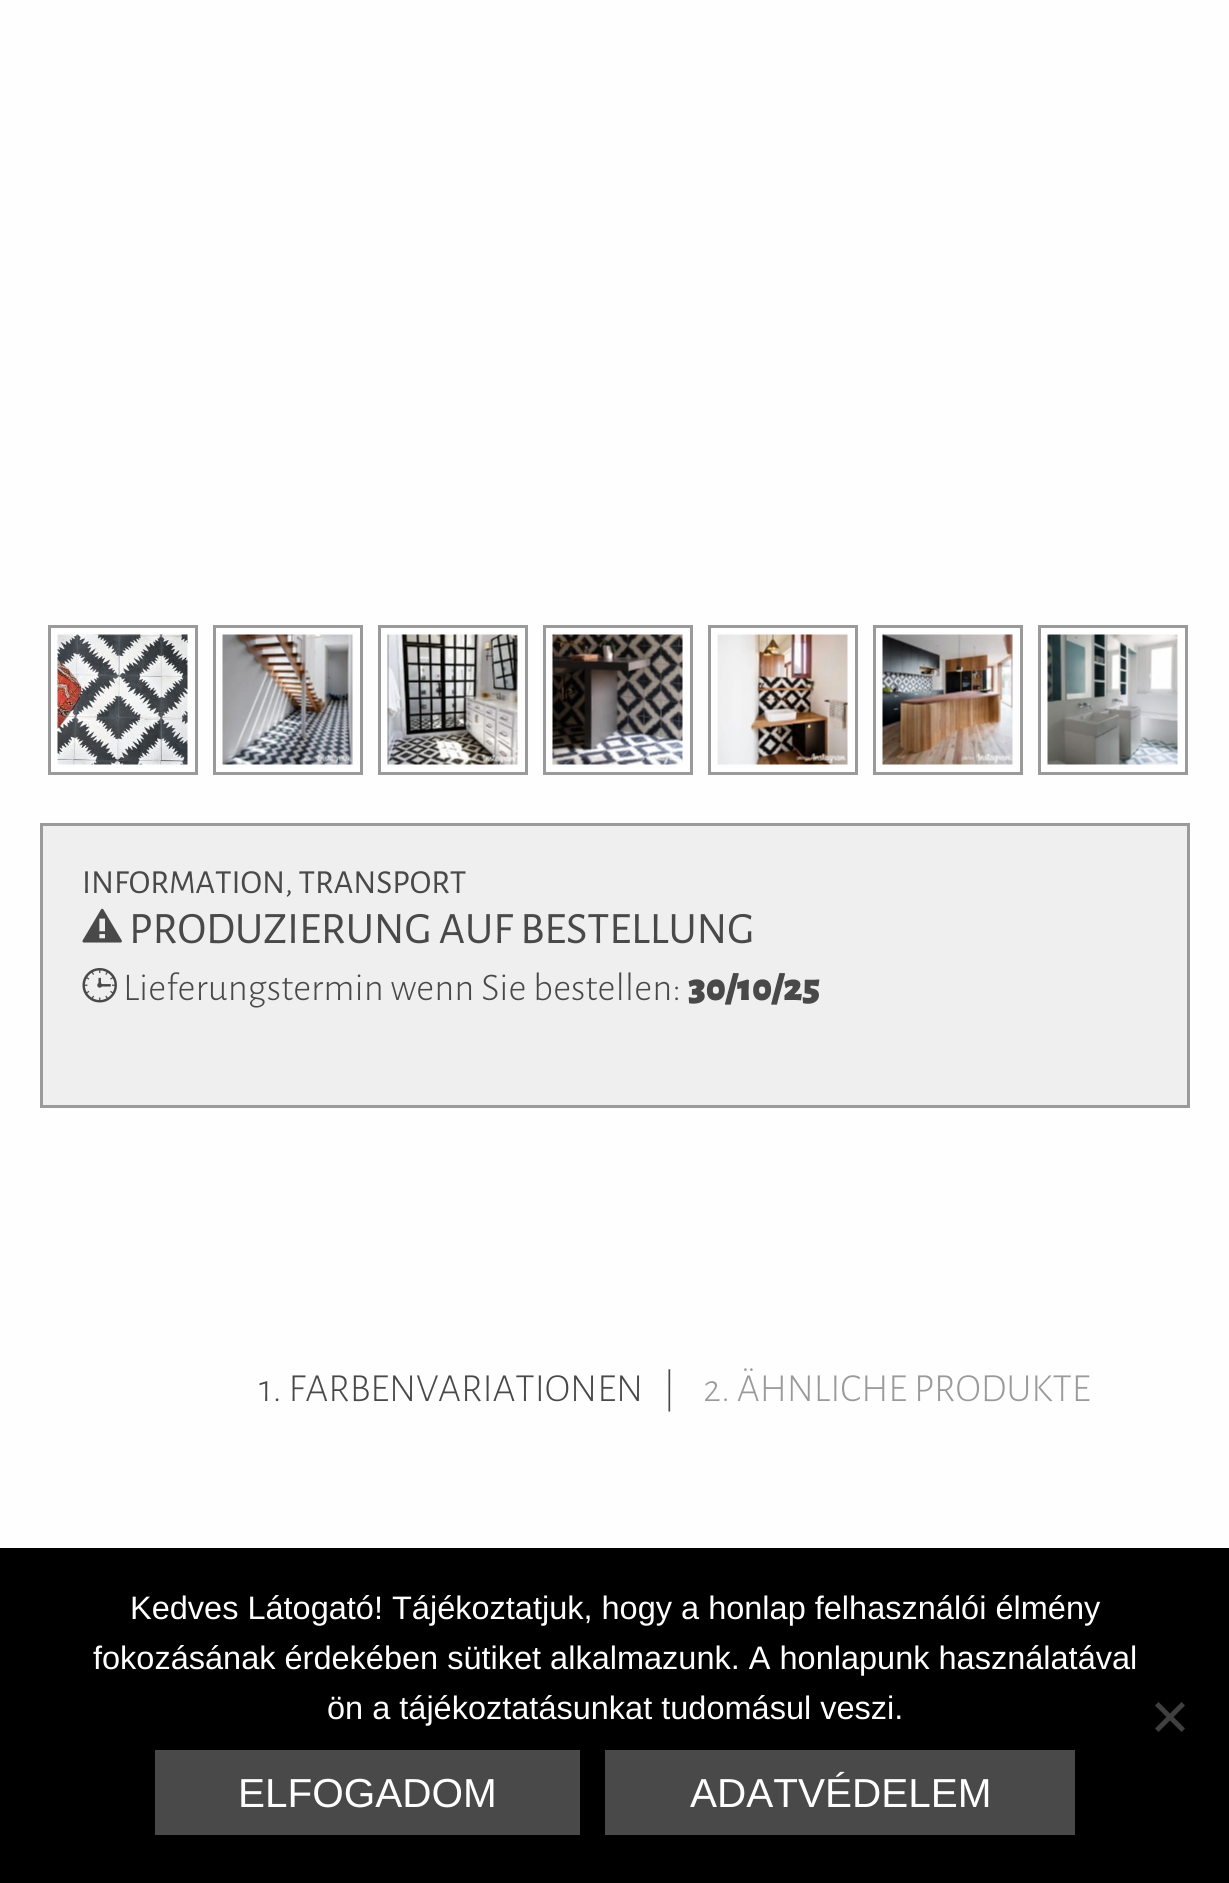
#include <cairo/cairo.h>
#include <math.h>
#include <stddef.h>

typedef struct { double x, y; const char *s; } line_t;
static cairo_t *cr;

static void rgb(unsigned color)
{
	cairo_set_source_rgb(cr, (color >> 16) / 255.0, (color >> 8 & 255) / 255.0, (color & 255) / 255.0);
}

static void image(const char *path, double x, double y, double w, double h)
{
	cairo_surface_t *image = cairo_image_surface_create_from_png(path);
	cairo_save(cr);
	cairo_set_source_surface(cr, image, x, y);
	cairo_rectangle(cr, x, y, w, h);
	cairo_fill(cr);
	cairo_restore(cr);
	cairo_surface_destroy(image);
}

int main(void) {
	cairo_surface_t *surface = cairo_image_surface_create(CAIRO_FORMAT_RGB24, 1229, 1883);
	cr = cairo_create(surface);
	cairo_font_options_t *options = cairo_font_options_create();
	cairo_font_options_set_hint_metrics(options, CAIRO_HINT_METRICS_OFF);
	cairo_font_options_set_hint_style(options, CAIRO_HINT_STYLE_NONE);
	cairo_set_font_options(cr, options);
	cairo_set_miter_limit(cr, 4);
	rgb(0xfefeff);
	cairo_paint(cr);
	cairo_rectangle(cr, 49.5, 626.5, 147, 147);
	rgb(0x9a9a9b);
	cairo_set_line_width(cr, 3);
	cairo_stroke(cr);
	image("img/1.png", 57, 634, 131, 131);
	cairo_rectangle(cr, 214.5, 626.5, 147, 147);
	cairo_stroke(cr);
	image("img/2.png", 222, 634, 131, 131);
	cairo_rectangle(cr, 379.5, 626.5, 147, 147);
	cairo_stroke(cr);
	image("img/3.png", 387, 634, 131, 131);
	cairo_rectangle(cr, 544.5, 626.5, 147, 147);
	cairo_stroke(cr);
	image("img/4.png", 552, 634, 131, 131);
	cairo_rectangle(cr, 709.5, 626.5, 147, 147);
	cairo_stroke(cr);
	image("img/5.png", 717, 634, 131, 131);
	cairo_rectangle(cr, 874.5, 626.5, 147, 147);
	cairo_stroke(cr);
	image("img/6.png", 882, 634, 131, 131);
	cairo_rectangle(cr, 1039.5, 626.5, 147, 147);
	cairo_stroke(cr);
	image("img/7.png", 1047, 634, 131, 131);
	rgb(0xefefef);
	cairo_rectangle(cr, 41.5, 824.5, 1147, 282);
	cairo_fill_preserve(cr);
	rgb(0x9a9a9b);
	cairo_stroke(cr);
	image("img/8.png", 82, 908, 40, 35);
	image("img/9.png", 82, 968, 35, 35);
	rgb(0x000000);
	cairo_rectangle(cr, 0, 1548, 1229, 335);
	cairo_fill(cr);
	rgb(0x404040);
	cairo_new_path(cr);
	cairo_move_to(cr, 1181.5, 1702);
	cairo_line_to(cr, 1185, 1705.5);
	cairo_line_to(cr, 1158.5, 1732);
	cairo_line_to(cr, 1155, 1728.5);
	cairo_close_path(cr);
	cairo_fill(cr);
	cairo_new_path(cr);
	cairo_move_to(cr, 1155, 1705.5);
	cairo_line_to(cr, 1158.5, 1702);
	cairo_line_to(cr, 1185, 1728.5);
	cairo_line_to(cr, 1181.5, 1732);
	cairo_close_path(cr);
	cairo_fill(cr);
	rgb(0x49494a);
	cairo_rectangle(cr, 155, 1750, 425, 85);
	cairo_fill(cr);
	cairo_rectangle(cr, 605, 1750, 470, 85);
	cairo_fill(cr);
	cairo_select_font_face(cr, "Alegreya Sans", CAIRO_FONT_SLANT_NORMAL, CAIRO_FONT_WEIGHT_NORMAL);
	cairo_set_font_size(cr, 33.75);
	cairo_move_to(cr, 82, 893);
	cairo_show_text(cr, "INFORMATION, TRANSPORT");
	cairo_set_font_size(cr, 45);
	cairo_move_to(cr, 129, 943);
	cairo_show_text(cr, "PRODUZIERUNG AUF BESTELLUNG");
	cairo_select_font_face(cr, "Alegreya Sans Light", CAIRO_FONT_SLANT_NORMAL, CAIRO_FONT_WEIGHT_NORMAL);
	cairo_set_font_size(cr, 39.4);
	cairo_move_to(cr, 123, 1000);
	cairo_show_text(cr, "Lieferungstermin wenn Sie bestellen:");
	cairo_select_font_face(cr, "Alegreya Sans Black", CAIRO_FONT_SLANT_NORMAL, CAIRO_FONT_WEIGHT_NORMAL);
	cairo_move_to(cr, 688, 1000);
	cairo_show_text(cr, "30/10/25");
	cairo_select_font_face(cr, "Alegreya Sans Light", CAIRO_FONT_SLANT_NORMAL, CAIRO_FONT_WEIGHT_NORMAL);
	cairo_set_font_size(cr, 40);
	cairo_move_to(cr, 259, 1401);
	cairo_show_text(cr, "1. FARBENVARIATIONEN");
	cairo_move_to(cr, 663, 1401);
	cairo_show_text(cr, "|");
	rgb(0x9a9a9b);
	cairo_move_to(cr, 703, 1401);
	cairo_show_text(cr, "2. ÄHNLICHE PRODUKTE");
	cairo_select_font_face(cr, "Liberation Sans", CAIRO_FONT_SLANT_NORMAL, CAIRO_FONT_WEIGHT_NORMAL);
	cairo_set_font_size(cr, 32.5);
	rgb(0xffffff);
	{
		static const line_t items[] = {
			{130, 1619, "Kedves Látogató! Tájékoztatjuk, hogy a honlap felhasználói élmény"},
			{93, 1669, "fokozásának érdekében sütiket alkalmazunk. A honlapunk használatával"},
			{327, 1719, "ön a tájékoztatásunkat tudomásul veszi."},
		};
		for (size_t i = 0; i < sizeof items / sizeof *items; i++) {
			cairo_move_to(cr, items[i].x, items[i].y);
			cairo_show_text(cr, items[i].s);
		}
	}
	cairo_set_font_size(cr, 40.5);
	cairo_move_to(cr, 238, 1807);
	cairo_show_text(cr, "ELFOGADOM");
	cairo_move_to(cr, 690, 1807);
	cairo_show_text(cr, "ADATVÉDELEM");
	cairo_surface_write_to_png(surface, "page.png");
	cairo_font_options_destroy(options);
	cairo_destroy(cr);
	cairo_surface_destroy(surface);
	return 0;
}
